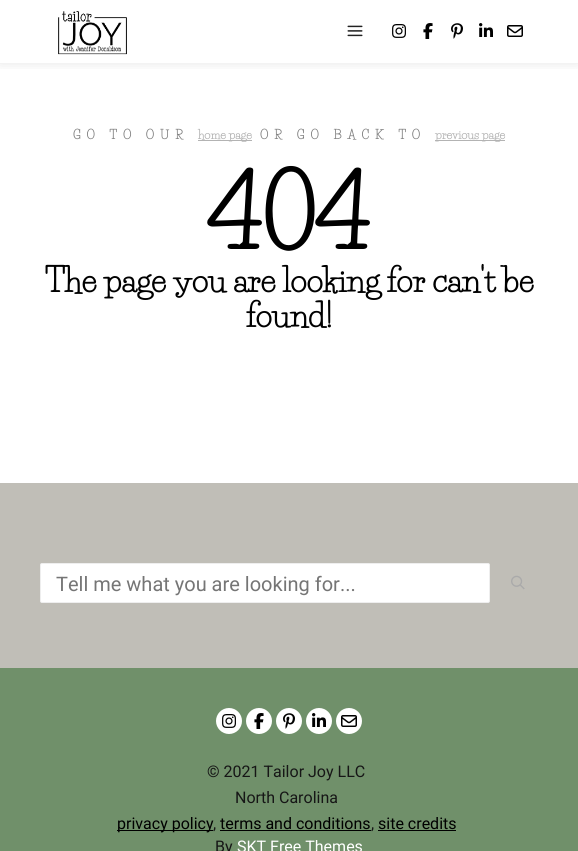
#include <cairo/cairo.h>
#include <math.h>
#include <stddef.h>

typedef struct { double x, y, w, h; unsigned color; } box_t;
static cairo_t *cr;

static void rgb(unsigned color)
{
	cairo_set_source_rgb(cr, (color >> 16) / 255.0, (color >> 8 & 255) / 255.0, (color & 255) / 255.0);
}

static void tracked(double x, double y, const char *s, double letter, double word)
{
	cairo_move_to(cr, x, y);
	while (*s) {
		char ch[5] = {0};
		int n = 0;
		do ch[n++] = *s++; while ((*s & 0xC0) == 0x80);
		cairo_show_text(cr, ch);
		cairo_rel_move_to(cr, letter + word * (*ch == ' '), 0);
	}
}

static void rrect(double x, double y, double w, double h, double r)
{
	cairo_new_sub_path(cr);
	cairo_arc(cr, x + w - r, y + h - r, r, 0, M_PI / 2);
	cairo_arc(cr, x + r, y + h - r, r, M_PI / 2, M_PI);
	cairo_arc(cr, x + r, y + r, r, M_PI, 1.5 * M_PI);
	cairo_arc(cr, x + w - r, y + r, r, 1.5 * M_PI, 2 * M_PI);
	cairo_close_path(cr);
}

static void soft_shadow(double x, double y, double w, double h, double r, double blur, double alpha)
{
	cairo_push_group_with_content(cr, CAIRO_CONTENT_ALPHA);
	cairo_set_operator(cr, CAIRO_OPERATOR_SOURCE);
	for (int i = 15; i >= -15 && fmin(w, h) + blur * i / 3 > 0; i -= 2) {
		double e = blur * i / 6;
		cairo_set_source_rgba(cr, 0, 0, 0, alpha * erfc((i - 1) / 8.5) / 2);
		rrect(x - e, y - e, w + 2 * e, h + 2 * e, fmax(0, fmin(r + e + blur * .6, fmin(w, h) / 2 + e)));
		cairo_fill(cr);
	}
	cairo_pattern_t *soft = cairo_pop_group(cr);
	cairo_mask(cr, soft);
	cairo_pattern_destroy(soft);
}

static void image(const char *path, double x, double y, double w, double h)
{
	cairo_surface_t *image = cairo_image_surface_create_from_png(path);
	cairo_save(cr);
	cairo_set_source_surface(cr, image, x, y);
	cairo_rectangle(cr, x, y, w, h);
	cairo_fill(cr);
	cairo_restore(cr);
	cairo_surface_destroy(image);
}

int main(void) {
	cairo_surface_t *surface = cairo_image_surface_create(CAIRO_FORMAT_RGB24, 578, 851);
	cr = cairo_create(surface);
	cairo_font_options_t *options = cairo_font_options_create();
	cairo_font_options_set_hint_metrics(options, CAIRO_HINT_METRICS_OFF);
	cairo_font_options_set_hint_style(options, CAIRO_HINT_STYLE_NONE);
	cairo_set_font_options(cr, options);
	cairo_set_miter_limit(cr, 4);
	rgb(0xffffff);
	cairo_paint(cr);
	cairo_save(cr);
	cairo_rectangle(cr, 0, 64, 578, 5);
	cairo_clip(cr);
	rgb(0x000000);
	soft_shadow(0, 0, 578, 64, 0, 6, 0.09);
	cairo_restore(cr);
	rgb(0xf3f3f3);
	cairo_rectangle(cr, 0, 63, 578, 1);
	cairo_fill(cr);
	image("img/1.png", 58, 11, 69, 44);
	image("img/2.png", 347, 25, 16, 12);
	image("img/3.png", 392, 24, 14, 14);
	image("img/4.png", 423, 23, 10, 16);
	image("img/5.png", 451, 23, 12, 16);
	image("img/6.png", 479, 23, 14, 14);
	image("img/7.png", 507, 25, 16, 12);
	{
		static const box_t items[] = {
			{198, 140, 54, 1, 0xb3b3b3},
			{435, 140, 70, 1, 0xb3b3b3},
			{0, 483, 578, 185, 0xc0beb7},
		};
		for (size_t i = 0; i < sizeof items / sizeof *items; i++) {
			rgb(items[i].color);
			cairo_rectangle(cr, items[i].x, items[i].y, items[i].w, items[i].h);
			cairo_fill(cr);
		}
	}
	rgb(0xffffff);
	rrect(40.5, 563.5, 449, 39, 1.5);
	cairo_fill_preserve(cr);
	rgb(0xeeeeee);
	cairo_set_line_width(cr, 1);
	cairo_stroke(cr);
	image("img/8.png", 511, 575, 14, 15);
	rgb(0x70906a);
	cairo_rectangle(cr, 0, 668, 578, 183);
	cairo_fill(cr);
	rgb(0xffffff);
	cairo_arc(cr, 229, 721, 13, 0, 2 * M_PI);
	cairo_fill(cr);
	image("img/3.png", 222, 714, 14, 14);
	cairo_arc(cr, 259, 721, 13, 0, 2 * M_PI);
	cairo_fill(cr);
	image("img/4.png", 254, 713, 10, 16);
	cairo_arc(cr, 289, 721, 13, 0, 2 * M_PI);
	cairo_fill(cr);
	image("img/5.png", 283, 713, 12, 16);
	cairo_arc(cr, 319, 721, 13, 0, 2 * M_PI);
	cairo_fill(cr);
	image("img/6.png", 312, 713, 14, 14);
	cairo_arc(cr, 349, 721, 13, 0, 2 * M_PI);
	cairo_fill(cr);
	image("img/7.png", 341, 715, 16, 12);
	{
		static const box_t items[] = {
			{117, 830, 96, 1, 0x000000},
			{220, 830, 151, 1, 0x000000},
			{378, 830, 78, 1, 0x000000},
		};
		for (size_t i = 0; i < sizeof items / sizeof *items; i++) {
			rgb(items[i].color);
			cairo_rectangle(cr, items[i].x, items[i].y, items[i].w, items[i].h);
			cairo_fill(cr);
		}
	}
	cairo_select_font_face(cr, "Life Savers", CAIRO_FONT_SLANT_NORMAL, CAIRO_FONT_WEIGHT_BOLD);
	cairo_set_font_size(cr, 12);
	rgb(0x808080);
	tracked(73, 139, "GO TO OUR", 6, 0);
	rgb(0xb3b3b3);
	cairo_move_to(cr, 198, 139);
	cairo_show_text(cr, "home page");
	rgb(0x808080);
	tracked(260, 139, "OR GO BACK TO", 6, 0);
	rgb(0xb3b3b3);
	cairo_move_to(cr, 435, 139);
	cairo_show_text(cr, "previous page");
	cairo_set_font_size(cr, 96);
	rgb(0x000000);
	cairo_move_to(cr, 208, 249);
	cairo_show_text(cr, "404");
	cairo_set_font_size(cr, 32);
	cairo_move_to(cr, 45, 292);
	cairo_show_text(cr, "The page you are looking for can't be");
	cairo_move_to(cr, 246, 327);
	cairo_show_text(cr, "found!");
	cairo_select_font_face(cr, "Roboto", CAIRO_FONT_SLANT_NORMAL, CAIRO_FONT_WEIGHT_NORMAL);
	cairo_set_font_size(cr, 20);
	rgb(0x757575);
	cairo_move_to(cr, 56, 591);
	cairo_show_text(cr, "Tell me what you are looking for...");
	cairo_set_font_size(cr, 16);
	rgb(0x161616);
	cairo_move_to(cr, 207, 777);
	cairo_show_text(cr, "© 2021 Tailor Joy LLC");
	cairo_move_to(cr, 235, 803);
	cairo_show_text(cr, "North Carolina");
	rgb(0x000000);
	cairo_move_to(cr, 117, 829);
	cairo_show_text(cr, "privacy policy");
	rgb(0x161616);
	cairo_move_to(cr, 213, 829);
	cairo_show_text(cr, ",");
	rgb(0x000000);
	cairo_move_to(cr, 220, 829);
	cairo_show_text(cr, "terms and conditions");
	rgb(0x161616);
	cairo_move_to(cr, 371, 829);
	cairo_show_text(cr, ",");
	rgb(0x000000);
	cairo_move_to(cr, 378, 829);
	cairo_show_text(cr, "site credits");
	rgb(0x161616);
	cairo_move_to(cr, 215, 852);
	cairo_show_text(cr, "By");
	rgb(0xffffff);
	cairo_move_to(cr, 237, 852);
	cairo_show_text(cr, "SKT Free Themes");
	cairo_surface_write_to_png(surface, "page.png");
	cairo_font_options_destroy(options);
	cairo_destroy(cr);
	cairo_surface_destroy(surface);
	return 0;
}
